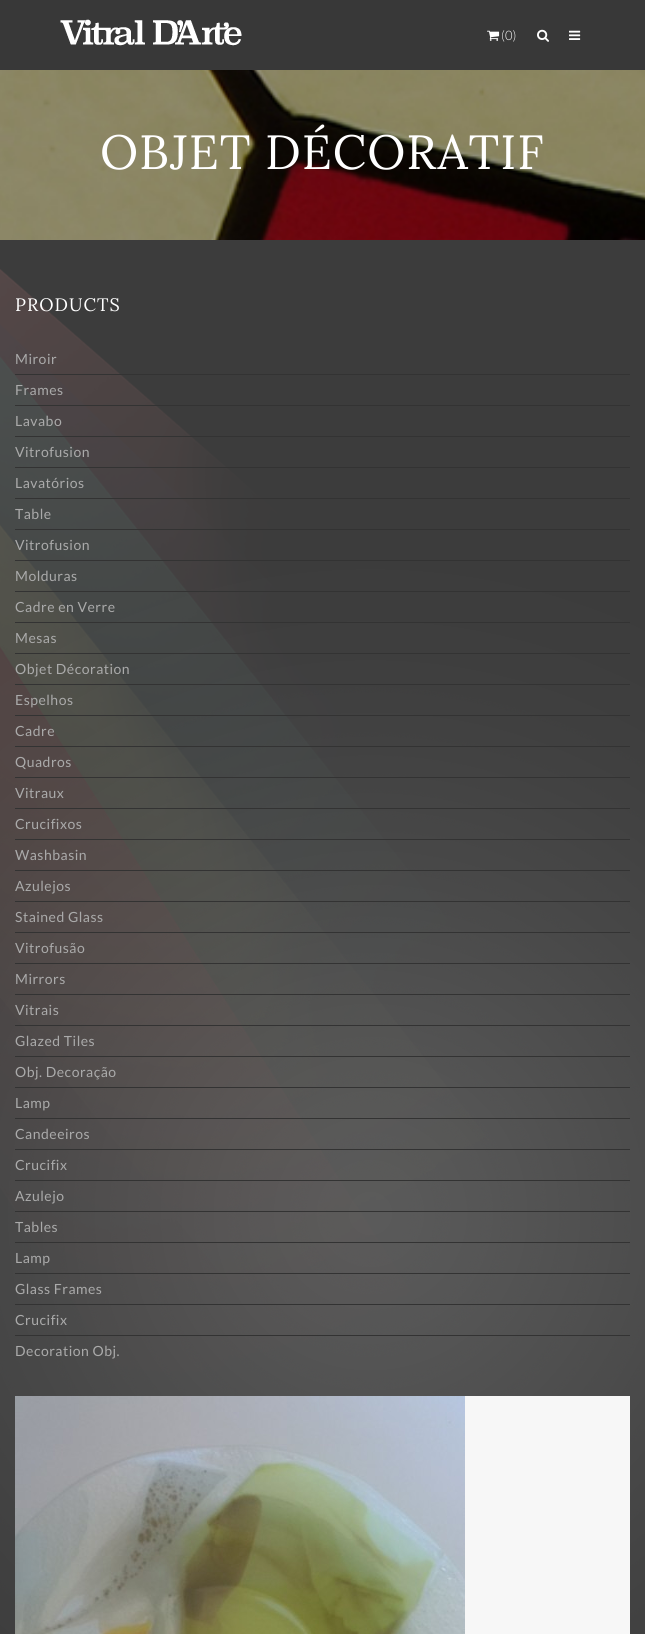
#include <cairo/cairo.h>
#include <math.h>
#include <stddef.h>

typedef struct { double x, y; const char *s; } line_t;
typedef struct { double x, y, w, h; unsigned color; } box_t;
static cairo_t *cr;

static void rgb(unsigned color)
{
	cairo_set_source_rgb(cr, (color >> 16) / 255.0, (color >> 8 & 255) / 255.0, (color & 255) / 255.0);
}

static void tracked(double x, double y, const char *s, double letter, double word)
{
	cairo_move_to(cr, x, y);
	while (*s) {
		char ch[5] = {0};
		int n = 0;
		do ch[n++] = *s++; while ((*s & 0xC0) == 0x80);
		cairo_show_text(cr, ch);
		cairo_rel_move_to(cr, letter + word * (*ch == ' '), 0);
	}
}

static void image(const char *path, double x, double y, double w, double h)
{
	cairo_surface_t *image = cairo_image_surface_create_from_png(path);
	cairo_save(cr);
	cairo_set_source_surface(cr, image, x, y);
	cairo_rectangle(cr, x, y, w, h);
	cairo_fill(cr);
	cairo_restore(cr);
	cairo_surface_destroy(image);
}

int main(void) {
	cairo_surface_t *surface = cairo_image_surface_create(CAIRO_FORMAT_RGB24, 645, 1634);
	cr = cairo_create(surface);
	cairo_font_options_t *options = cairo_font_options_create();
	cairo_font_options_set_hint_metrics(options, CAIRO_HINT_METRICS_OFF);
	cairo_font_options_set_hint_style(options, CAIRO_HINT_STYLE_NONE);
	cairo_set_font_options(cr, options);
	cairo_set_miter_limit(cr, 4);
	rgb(0x3c3c3c);
	cairo_paint(cr);
	image("img/1.png", 0, 269, 645, 1365);
	rgb(0x383838);
	cairo_rectangle(cr, 0, 0, 645, 70);
	cairo_fill(cr);
	image("img/2.png", 60, 19, 182, 27);
	image("img/3.png", 487, 30, 13, 11);
	image("img/4.png", 537, 29, 12, 13);
	image("img/5.png", 569, 30, 12, 10);
	image("img/6.png", 0, 70, 645, 170);
	{
		static const box_t items[] = {
			{15, 374, 615, 1, 0x333333},
			{15, 405, 615, 1, 0x333333},
			{15, 436, 615, 1, 0x333333},
			{15, 467, 615, 1, 0x333333},
			{15, 498, 615, 1, 0x333333},
			{15, 529, 615, 1, 0x333333},
			{15, 560, 615, 1, 0x333333},
			{15, 591, 615, 1, 0x333333},
			{15, 622, 615, 1, 0x333333},
			{15, 653, 615, 1, 0x333333},
			{15, 684, 615, 1, 0x333333},
			{15, 715, 615, 1, 0x333333},
			{15, 746, 615, 1, 0x333333},
			{15, 777, 615, 1, 0x333333},
			{15, 808, 615, 1, 0x333333},
			{15, 839, 615, 1, 0x333333},
			{15, 870, 615, 1, 0x333333},
			{15, 901, 615, 1, 0x333333},
			{15, 932, 615, 1, 0x333333},
			{15, 963, 615, 1, 0x333333},
			{15, 994, 615, 1, 0x333333},
			{15, 1025, 615, 1, 0x333333},
			{15, 1056, 615, 1, 0x333333},
			{15, 1087, 615, 1, 0x333333},
			{15, 1118, 615, 1, 0x333333},
			{15, 1149, 615, 1, 0x333333},
			{15, 1180, 615, 1, 0x333333},
			{15, 1211, 615, 1, 0x333333},
			{15, 1242, 615, 1, 0x333333},
			{15, 1273, 615, 1, 0x333333},
			{15, 1304, 615, 1, 0x333333},
			{15, 1335, 615, 1, 0x333333},
			{465, 1396, 165, 238, 0xf7f7f7},
		};
		for (size_t i = 0; i < sizeof items / sizeof *items; i++) {
			rgb(items[i].color);
			cairo_rectangle(cr, items[i].x, items[i].y, items[i].w, items[i].h);
			cairo_fill(cr);
		}
	}
	image("img/7.png", 15, 1396, 450, 238);
	cairo_select_font_face(cr, "Lato Light", CAIRO_FONT_SLANT_NORMAL, CAIRO_FONT_WEIGHT_NORMAL);
	cairo_set_font_size(cr, 13);
	rgb(0xffffff);
	cairo_move_to(cr, 501, 40);
	cairo_show_text(cr, "(0)");
	cairo_select_font_face(cr, "Lora", CAIRO_FONT_SLANT_NORMAL, CAIRO_FONT_WEIGHT_NORMAL);
	cairo_set_font_size(cr, 48);
	tracked(100, 169, "OBJET DÉCORATIF", 1, 0);
	cairo_set_font_size(cr, 18);
	tracked(15, 311, "PRODUCTS", 1, 0);
	cairo_select_font_face(cr, "Lato", CAIRO_FONT_SLANT_NORMAL, CAIRO_FONT_WEIGHT_NORMAL);
	cairo_set_font_size(cr, 14);
	rgb(0xaaaaaa);
	{
		static const line_t items[] = {
			{15, 364, "Miroir"},
			{15, 395, "Frames"},
			{15, 426, "Lavabo"},
			{15, 457, "Vitrofusion"},
			{15, 488, "Lavatórios"},
			{15, 519, "Table"},
			{15, 550, "Vitrofusion"},
			{15, 581, "Molduras"},
			{15, 612, "Cadre en Verre"},
			{15, 643, "Mesas"},
			{15, 674, "Objet Décoration"},
			{15, 705, "Espelhos"},
			{15, 736, "Cadre"},
			{15, 767, "Quadros"},
			{15, 798, "Vitraux"},
			{15, 829, "Crucifixos"},
			{15, 860, "Washbasin"},
			{15, 891, "Azulejos"},
			{15, 922, "Stained Glass"},
			{15, 953, "Vitrofusão"},
			{15, 984, "Mirrors"},
			{15, 1015, "Vitrais"},
			{15, 1046, "Glazed Tiles"},
			{15, 1077, "Obj. Decoração"},
			{15, 1108, "Lamp"},
			{15, 1139, "Candeeiros"},
			{15, 1170, "Crucifix"},
			{15, 1201, "Azulejo"},
			{15, 1232, "Tables"},
			{15, 1263, "Lamp"},
			{15, 1294, "Glass Frames"},
			{15, 1325, "Crucifix"},
			{15, 1356, "Decoration Obj."},
		};
		for (size_t i = 0; i < sizeof items / sizeof *items; i++) {
			tracked(items[i].x, items[i].y, items[i].s, 0.5, 0);
		}
	}
	cairo_surface_write_to_png(surface, "page.png");
	cairo_font_options_destroy(options);
	cairo_destroy(cr);
	cairo_surface_destroy(surface);
	return 0;
}
